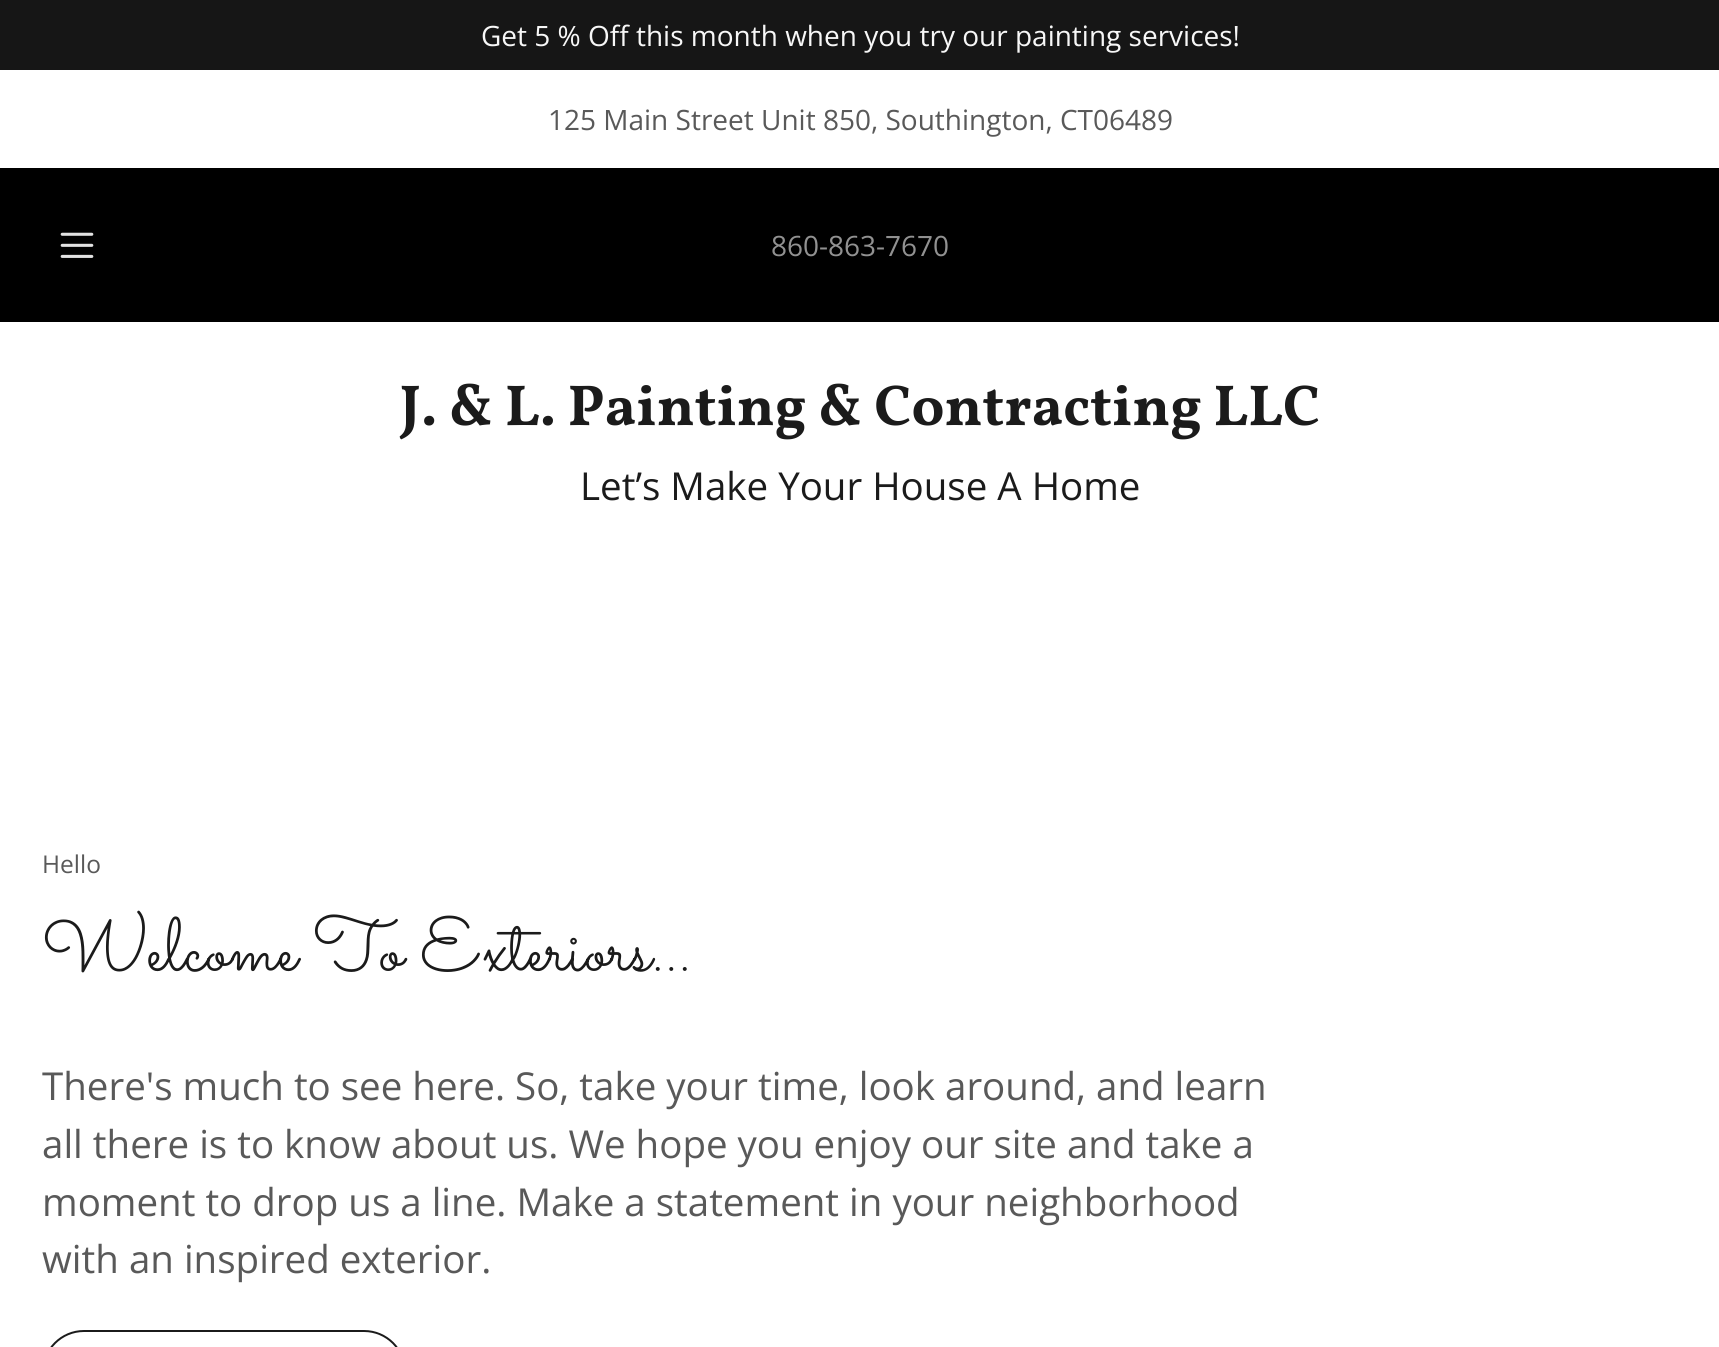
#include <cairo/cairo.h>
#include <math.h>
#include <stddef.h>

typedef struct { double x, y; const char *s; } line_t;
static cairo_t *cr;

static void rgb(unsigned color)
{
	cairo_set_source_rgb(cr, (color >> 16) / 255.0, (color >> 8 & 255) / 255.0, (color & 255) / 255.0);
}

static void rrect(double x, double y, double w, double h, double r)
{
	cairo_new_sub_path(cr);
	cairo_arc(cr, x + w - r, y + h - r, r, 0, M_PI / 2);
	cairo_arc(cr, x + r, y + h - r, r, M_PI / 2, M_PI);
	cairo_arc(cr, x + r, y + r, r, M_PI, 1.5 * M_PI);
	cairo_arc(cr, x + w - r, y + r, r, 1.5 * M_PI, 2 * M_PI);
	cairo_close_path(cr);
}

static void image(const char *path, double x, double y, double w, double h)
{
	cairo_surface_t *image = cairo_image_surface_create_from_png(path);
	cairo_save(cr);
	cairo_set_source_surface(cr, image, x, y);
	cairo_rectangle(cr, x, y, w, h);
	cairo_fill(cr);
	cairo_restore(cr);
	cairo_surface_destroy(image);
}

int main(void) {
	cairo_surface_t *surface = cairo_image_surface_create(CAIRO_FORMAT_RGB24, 1719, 1347);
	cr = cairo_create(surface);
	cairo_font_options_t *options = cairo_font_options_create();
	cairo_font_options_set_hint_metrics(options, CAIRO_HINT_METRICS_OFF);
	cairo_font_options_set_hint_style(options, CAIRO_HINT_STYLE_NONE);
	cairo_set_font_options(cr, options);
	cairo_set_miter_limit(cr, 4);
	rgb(0xffffff);
	cairo_paint(cr);
	rgb(0x161616);
	cairo_rectangle(cr, 0, 0, 1719, 70);
	cairo_fill(cr);
	rgb(0x000000);
	cairo_rectangle(cr, 0, 168, 1719, 154);
	cairo_fill(cr);
	image("img/1.png", 60, 232, 34, 26);
	rrect(43, 1331, 362, 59, 41);
	rgb(0x1b1b1b);
	cairo_stroke(cr);
	cairo_select_font_face(cr, "Open Sans", CAIRO_FONT_SLANT_NORMAL, CAIRO_FONT_WEIGHT_NORMAL);
	cairo_set_font_size(cr, 28);
	rgb(0xf7f7f7);
	cairo_move_to(cr, 481, 46);
	cairo_show_text(cr, "Get 5 % Off this month when you try our painting services!");
	rgb(0x595959);
	cairo_move_to(cr, 548, 130);
	cairo_show_text(cr, "125 Main Street Unit 850, Southington, CT06489");
	rgb(0x919191);
	cairo_move_to(cr, 771, 256);
	cairo_show_text(cr, "860-863-7670");
	cairo_select_font_face(cr, "Vollkorn", CAIRO_FONT_SLANT_NORMAL, CAIRO_FONT_WEIGHT_BOLD);
	cairo_set_font_size(cr, 57.75);
	rgb(0x1b1b1b);
	cairo_move_to(cr, 400, 425);
	cairo_show_text(cr, "J. & L. Painting & Contracting LLC");
	cairo_select_font_face(cr, "Open Sans", CAIRO_FONT_SLANT_NORMAL, CAIRO_FONT_WEIGHT_NORMAL);
	cairo_set_font_size(cr, 38.5);
	cairo_move_to(cr, 580, 500);
	cairo_show_text(cr, "Let’s Make Your House A Home");
	cairo_set_font_size(cr, 24.5);
	rgb(0x595959);
	cairo_move_to(cr, 42, 873);
	cairo_show_text(cr, "Hello");
	cairo_select_font_face(cr, "Sacramento", CAIRO_FONT_SLANT_NORMAL, CAIRO_FONT_WEIGHT_NORMAL);
	cairo_set_font_size(cr, 75.25);
	rgb(0x1b1b1b);
	cairo_move_to(cr, 42, 970);
	cairo_show_text(cr, "Welcome To Exteriors...");
	cairo_select_font_face(cr, "Open Sans", CAIRO_FONT_SLANT_NORMAL, CAIRO_FONT_WEIGHT_NORMAL);
	cairo_set_font_size(cr, 38.5);
	rgb(0x595959);
	{
		static const line_t items[] = {
			{42, 1100, "There's much to see here. So, take your time, look around, and learn"},
			{42, 1158, "all there is to know about us. We hope you enjoy our site and take a"},
			{42, 1216, "moment to drop us a line. Make a statement in your neighborhood"},
			{42, 1273, "with an inspired exterior."},
		};
		for (size_t i = 0; i < sizeof items / sizeof *items; i++) {
			cairo_move_to(cr, items[i].x, items[i].y);
			cairo_show_text(cr, items[i].s);
		}
	}
	cairo_surface_write_to_png(surface, "page.png");
	cairo_font_options_destroy(options);
	cairo_destroy(cr);
	cairo_surface_destroy(surface);
	return 0;
}
